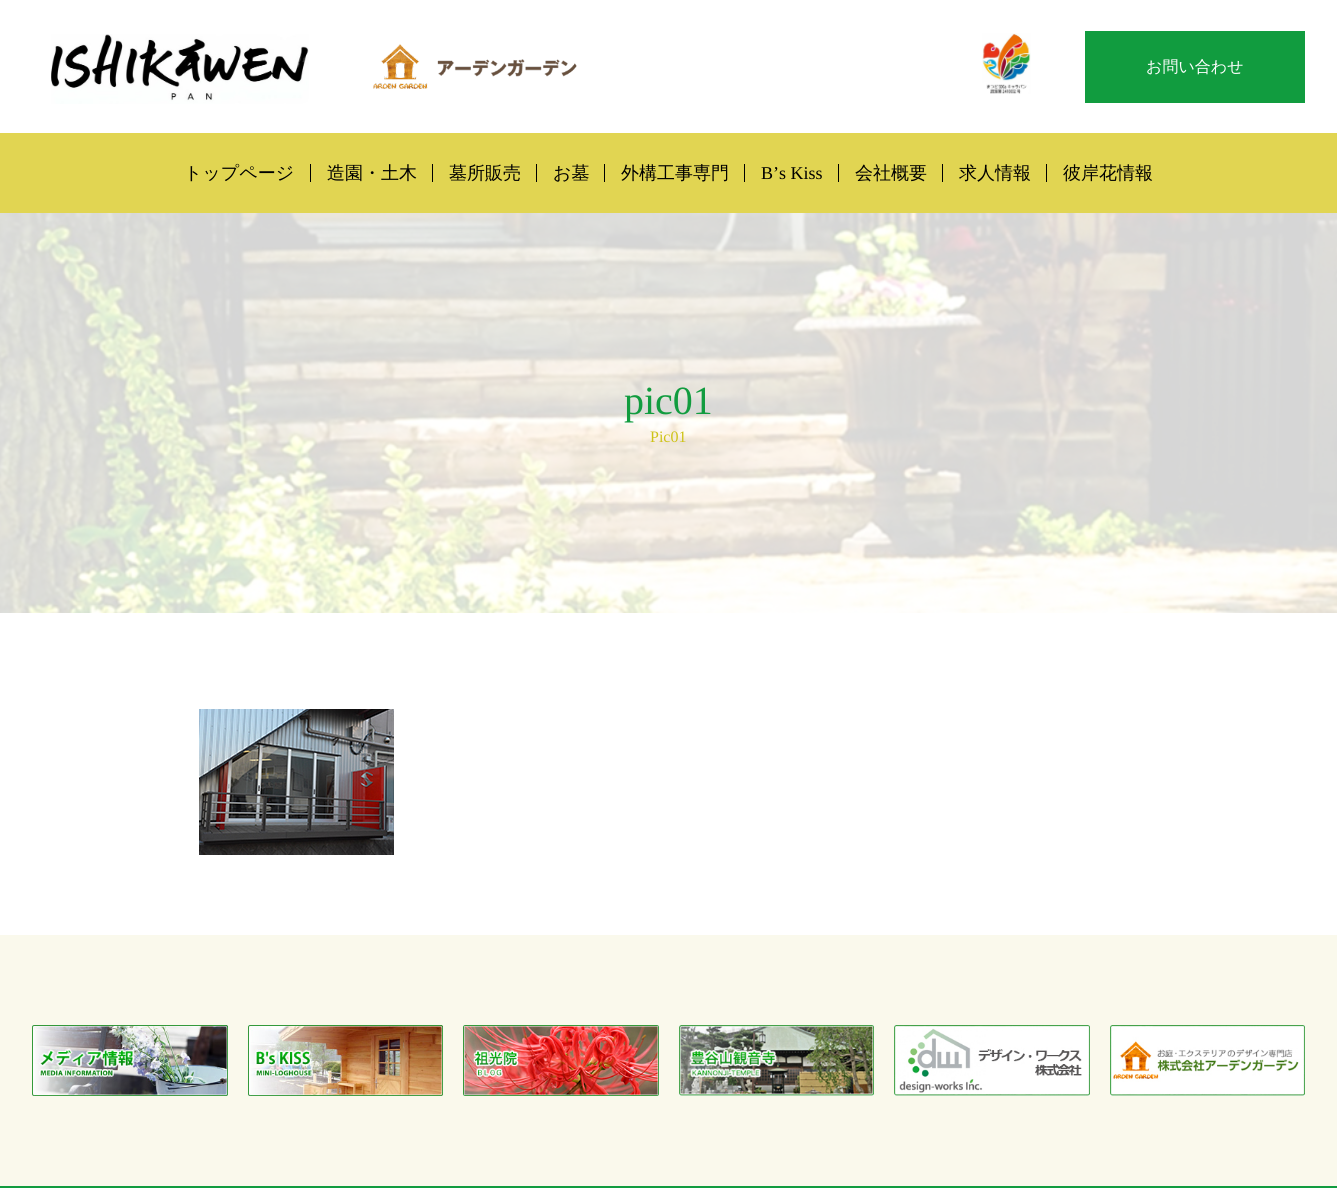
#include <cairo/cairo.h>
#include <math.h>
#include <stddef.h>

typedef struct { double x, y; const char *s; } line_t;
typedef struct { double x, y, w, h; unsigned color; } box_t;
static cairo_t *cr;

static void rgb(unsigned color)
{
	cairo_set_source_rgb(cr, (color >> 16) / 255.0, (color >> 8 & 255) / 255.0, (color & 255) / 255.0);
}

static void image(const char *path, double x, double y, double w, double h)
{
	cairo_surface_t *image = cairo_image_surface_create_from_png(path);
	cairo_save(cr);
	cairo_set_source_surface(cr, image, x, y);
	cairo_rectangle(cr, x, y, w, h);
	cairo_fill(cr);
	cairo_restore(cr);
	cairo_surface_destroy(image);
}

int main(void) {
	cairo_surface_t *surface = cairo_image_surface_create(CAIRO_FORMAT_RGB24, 1337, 1188);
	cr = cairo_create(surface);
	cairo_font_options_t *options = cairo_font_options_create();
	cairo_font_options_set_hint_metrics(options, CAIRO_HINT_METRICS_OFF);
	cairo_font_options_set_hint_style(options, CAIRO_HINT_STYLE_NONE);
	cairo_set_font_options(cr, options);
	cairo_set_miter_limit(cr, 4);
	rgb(0xffffff);
	cairo_paint(cr);
	image("img/1.png", 51, 34, 258, 70);
	image("img/2.png", 373, 44, 204, 45);
	image("img/3.png", 982, 33, 49, 61);
	{
		static const box_t items[] = {
			{1085, 31, 220, 72, 0x119c3f},
			{0, 133, 1337, 80, 0xe1d552},
			{310, 164, 1, 18, 0x000000},
			{432, 164, 1, 18, 0x000000},
			{536, 164, 1, 18, 0x000000},
			{604, 164, 1, 18, 0x000000},
			{744, 164, 1, 18, 0x000000},
			{838, 164, 1, 18, 0x000000},
			{942, 164, 1, 18, 0x000000},
			{1046, 164, 1, 18, 0x000000},
		};
		for (size_t i = 0; i < sizeof items / sizeof *items; i++) {
			rgb(items[i].color);
			cairo_rectangle(cr, items[i].x, items[i].y, items[i].w, items[i].h);
			cairo_fill(cr);
		}
	}
	image("img/4.png", 0, 213, 1337, 400);
	image("img/5.png", 199, 709, 195, 146);
	rgb(0xfaf9ec);
	cairo_rectangle(cr, 0, 935, 1337, 251);
	cairo_fill(cr);
	image("img/6.png", 32, 1025, 196, 71);
	image("img/7.png", 248, 1025, 195, 71);
	image("img/8.png", 463, 1025, 196, 71);
	image("img/9.png", 679, 1025, 195, 71);
	image("img/10.png", 894, 1025, 196, 71);
	image("img/11.png", 1110, 1025, 195, 71);
	rgb(0x119c3f);
	cairo_rectangle(cr, 0, 1186, 1337, 2);
	cairo_fill(cr);
	cairo_select_font_face(cr, "WenQuanYi Zen Hei Medium", CAIRO_FONT_SLANT_NORMAL, CAIRO_FONT_WEIGHT_NORMAL);
	cairo_set_font_size(cr, 16);
	rgb(0xffffff);
	cairo_move_to(cr, 1146, 72);
	cairo_show_text(cr, "お問い合わせ");
	cairo_set_font_size(cr, 18);
	rgb(0x000000);
	{
		static const line_t items[] = {
			{184, 179, "トップページ"},
			{327, 179, "造園・土木"},
			{449, 179, "墓所販売"},
			{553, 179, "お墓"},
			{621, 179, "外構工事専門"},
		};
		for (size_t i = 0; i < sizeof items / sizeof *items; i++) {
			cairo_move_to(cr, items[i].x, items[i].y);
			cairo_show_text(cr, items[i].s);
		}
	}
	cairo_select_font_face(cr, "Liberation Serif", CAIRO_FONT_SLANT_NORMAL, CAIRO_FONT_WEIGHT_NORMAL);
	cairo_move_to(cr, 761, 179);
	cairo_show_text(cr, "B’s Kiss");
	cairo_select_font_face(cr, "WenQuanYi Zen Hei Medium", CAIRO_FONT_SLANT_NORMAL, CAIRO_FONT_WEIGHT_NORMAL);
	{
		static const line_t items[] = {
			{855, 179, "会社概要"},
			{959, 179, "求人情報"},
			{1063, 179, "彼岸花情報"},
		};
		for (size_t i = 0; i < sizeof items / sizeof *items; i++) {
			cairo_move_to(cr, items[i].x, items[i].y);
			cairo_show_text(cr, items[i].s);
		}
	}
	cairo_select_font_face(cr, "Liberation Serif", CAIRO_FONT_SLANT_NORMAL, CAIRO_FONT_WEIGHT_NORMAL);
	cairo_set_font_size(cr, 40);
	rgb(0x119c3f);
	cairo_move_to(cr, 624, 414);
	cairo_show_text(cr, "pic01");
	cairo_set_font_size(cr, 16);
	rgb(0xcec318);
	cairo_move_to(cr, 650, 442);
	cairo_show_text(cr, "Pic01");
	cairo_surface_write_to_png(surface, "page.png");
	cairo_font_options_destroy(options);
	cairo_destroy(cr);
	cairo_surface_destroy(surface);
	return 0;
}
